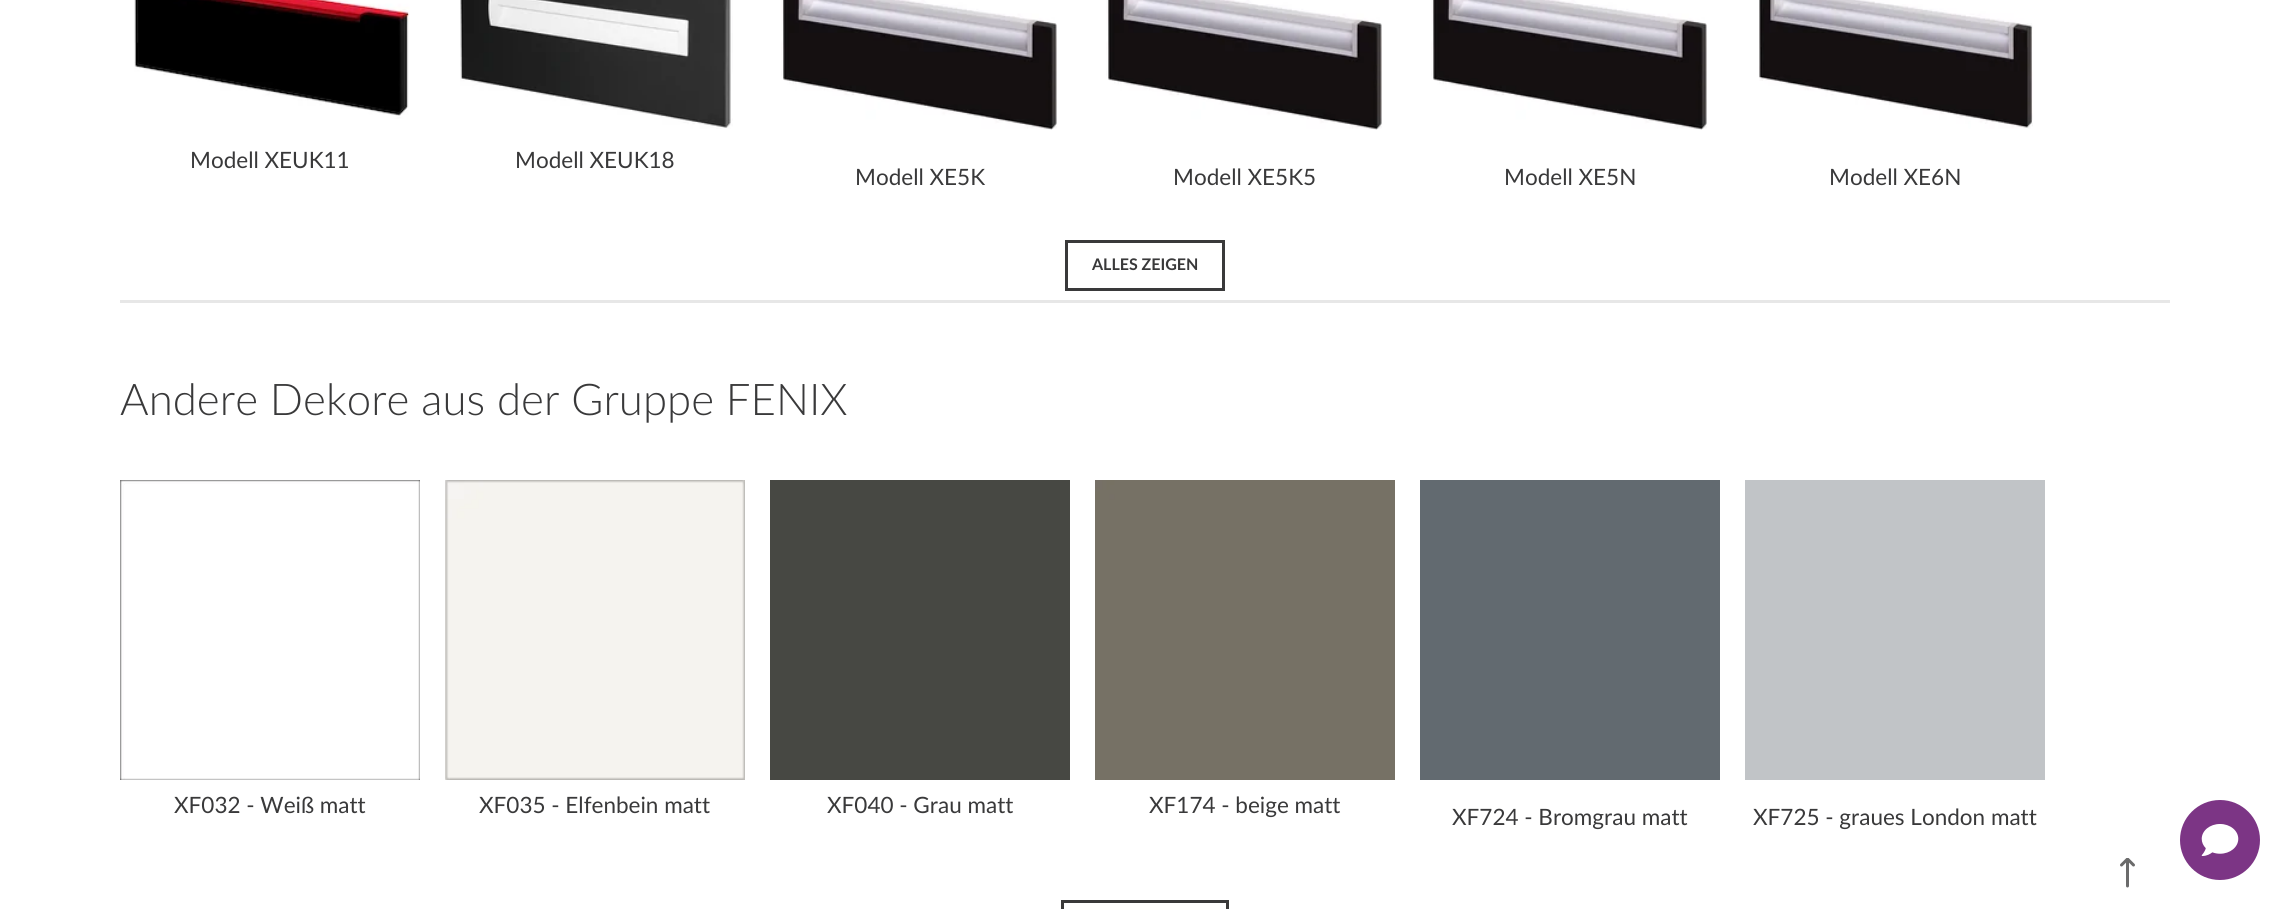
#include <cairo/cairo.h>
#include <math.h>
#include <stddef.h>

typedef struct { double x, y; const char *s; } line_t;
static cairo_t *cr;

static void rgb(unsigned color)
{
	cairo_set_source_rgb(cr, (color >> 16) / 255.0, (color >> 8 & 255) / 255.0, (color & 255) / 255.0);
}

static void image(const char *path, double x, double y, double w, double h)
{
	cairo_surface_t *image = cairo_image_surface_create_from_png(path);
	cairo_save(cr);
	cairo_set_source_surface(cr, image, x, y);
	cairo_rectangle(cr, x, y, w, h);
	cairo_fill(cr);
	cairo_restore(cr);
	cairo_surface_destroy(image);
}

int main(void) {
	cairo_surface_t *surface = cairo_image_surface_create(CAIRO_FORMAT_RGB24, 2290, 909);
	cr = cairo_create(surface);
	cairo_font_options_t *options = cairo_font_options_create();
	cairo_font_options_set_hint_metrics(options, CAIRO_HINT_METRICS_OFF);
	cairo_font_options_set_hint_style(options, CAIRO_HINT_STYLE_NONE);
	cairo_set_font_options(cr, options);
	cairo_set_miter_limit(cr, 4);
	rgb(0xffffff);
	cairo_paint(cr);
	rgb(0xe7e7e7);
	cairo_rectangle(cr, 120, 300, 2050, 3);
	cairo_fill(cr);
	image("img/1.png", 134, 0, 276, 119);
	image("img/2.png", 460, 0, 273, 129);
	image("img/3.png", 781, 0, 276, 130);
	image("img/4.png", 1106, 0, 276, 130);
	image("img/4.png", 1431, 0, 276, 130);
	image("img/5.png", 1759, 0, 274, 129);
	cairo_rectangle(cr, 1066.5, 241.5, 157, 48);
	rgb(0x39393a);
	cairo_set_line_width(cr, 3);
	cairo_stroke(cr);
	image("img/6.png", 120, 480, 300, 300);
	image("img/7.png", 445, 480, 300, 300);
	rgb(0x474843);
	cairo_rectangle(cr, 770, 480, 300, 300);
	cairo_fill(cr);
	image("img/8.png", 1095, 480, 300, 300);
	rgb(0x626a70);
	cairo_rectangle(cr, 1420, 480, 300, 300);
	cairo_fill(cr);
	rgb(0xc1c4c7);
	cairo_rectangle(cr, 1745, 480, 300, 300);
	cairo_fill(cr);
	cairo_rectangle(cr, 1062.5, 901.5, 165, 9);
	rgb(0x39393a);
	cairo_stroke(cr);
	image("img/9.png", 2120, 858, 15, 30);
	rgb(0x7c3585);
	cairo_arc(cr, 2220, 840, 40, 0, 2 * M_PI);
	cairo_fill(cr);
	image("img/10.png", 2201, 824, 38, 32);
	cairo_select_font_face(cr, "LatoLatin", CAIRO_FONT_SLANT_NORMAL, CAIRO_FONT_WEIGHT_NORMAL);
	cairo_set_font_size(cr, 22.5);
	rgb(0x39393a);
	{
		static const line_t items[] = {
			{190, 168, "Modell XEUK11"},
			{515, 168, "Modell XEUK18"},
			{855, 185, "Modell XE5K"},
			{1173, 185, "Modell XE5K5"},
			{1504, 185, "Modell XE5N"},
			{1829, 185, "Modell XE6N"},
		};
		for (size_t i = 0; i < sizeof items / sizeof *items; i++) {
			cairo_move_to(cr, items[i].x, items[i].y);
			cairo_show_text(cr, items[i].s);
		}
	}
	cairo_select_font_face(cr, "LatoLatin", CAIRO_FONT_SLANT_NORMAL, CAIRO_FONT_WEIGHT_BOLD);
	cairo_set_font_size(cr, 16);
	cairo_move_to(cr, 1092, 270);
	cairo_show_text(cr, "ALLES ZEIGEN");
	cairo_select_font_face(cr, "LatoLatin Light", CAIRO_FONT_SLANT_NORMAL, CAIRO_FONT_WEIGHT_NORMAL);
	cairo_set_font_size(cr, 43.75);
	cairo_move_to(cr, 120, 415);
	cairo_show_text(cr, "Andere Dekore aus der Gruppe FENIX");
	cairo_select_font_face(cr, "LatoLatin", CAIRO_FONT_SLANT_NORMAL, CAIRO_FONT_WEIGHT_NORMAL);
	cairo_set_font_size(cr, 22.5);
	{
		static const line_t items[] = {
			{174, 813, "XF032 - Weiß matt"},
			{479, 813, "XF035 - Elfenbein matt"},
			{827, 813, "XF040 - Grau matt"},
			{1149, 813, "XF174 - beige matt"},
			{1452, 825, "XF724 - Bromgrau matt"},
			{1753, 825, "XF725 - graues London matt"},
		};
		for (size_t i = 0; i < sizeof items / sizeof *items; i++) {
			cairo_move_to(cr, items[i].x, items[i].y);
			cairo_show_text(cr, items[i].s);
		}
	}
	cairo_surface_write_to_png(surface, "page.png");
	cairo_font_options_destroy(options);
	cairo_destroy(cr);
	cairo_surface_destroy(surface);
	return 0;
}
